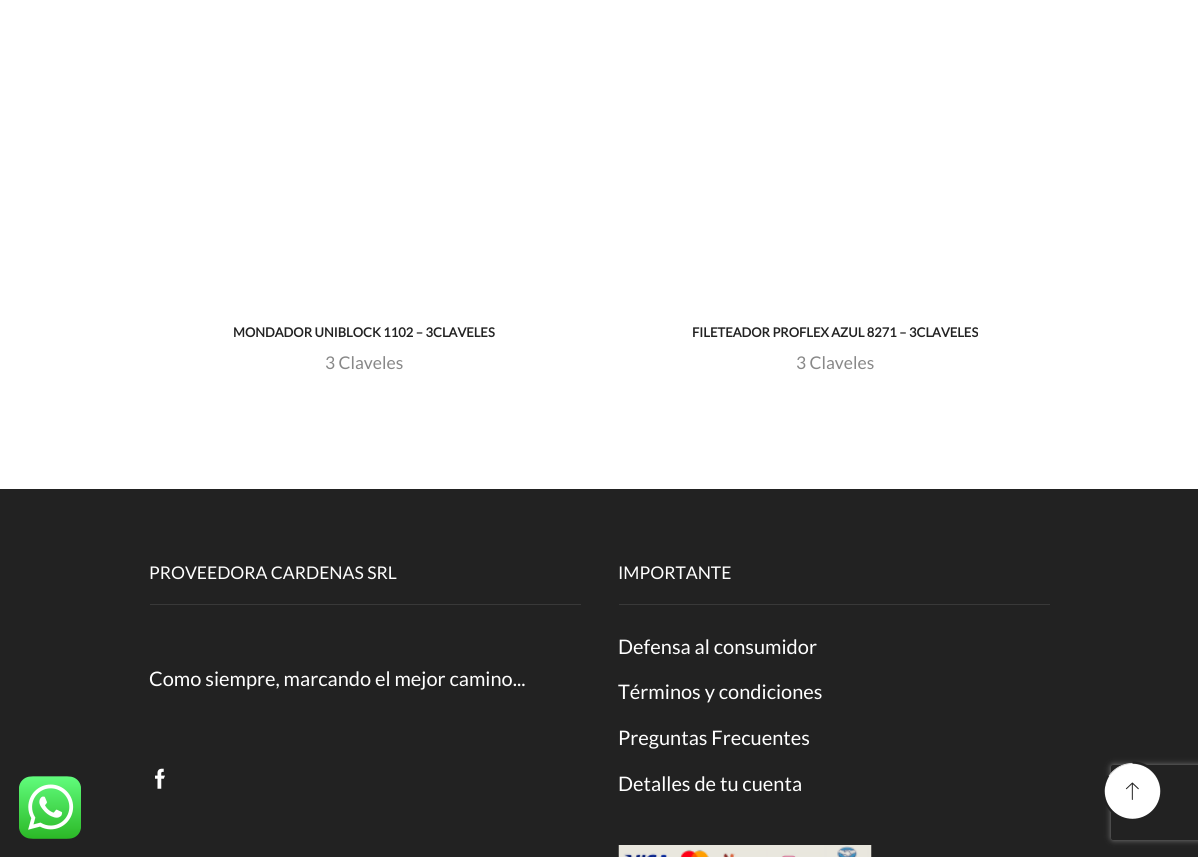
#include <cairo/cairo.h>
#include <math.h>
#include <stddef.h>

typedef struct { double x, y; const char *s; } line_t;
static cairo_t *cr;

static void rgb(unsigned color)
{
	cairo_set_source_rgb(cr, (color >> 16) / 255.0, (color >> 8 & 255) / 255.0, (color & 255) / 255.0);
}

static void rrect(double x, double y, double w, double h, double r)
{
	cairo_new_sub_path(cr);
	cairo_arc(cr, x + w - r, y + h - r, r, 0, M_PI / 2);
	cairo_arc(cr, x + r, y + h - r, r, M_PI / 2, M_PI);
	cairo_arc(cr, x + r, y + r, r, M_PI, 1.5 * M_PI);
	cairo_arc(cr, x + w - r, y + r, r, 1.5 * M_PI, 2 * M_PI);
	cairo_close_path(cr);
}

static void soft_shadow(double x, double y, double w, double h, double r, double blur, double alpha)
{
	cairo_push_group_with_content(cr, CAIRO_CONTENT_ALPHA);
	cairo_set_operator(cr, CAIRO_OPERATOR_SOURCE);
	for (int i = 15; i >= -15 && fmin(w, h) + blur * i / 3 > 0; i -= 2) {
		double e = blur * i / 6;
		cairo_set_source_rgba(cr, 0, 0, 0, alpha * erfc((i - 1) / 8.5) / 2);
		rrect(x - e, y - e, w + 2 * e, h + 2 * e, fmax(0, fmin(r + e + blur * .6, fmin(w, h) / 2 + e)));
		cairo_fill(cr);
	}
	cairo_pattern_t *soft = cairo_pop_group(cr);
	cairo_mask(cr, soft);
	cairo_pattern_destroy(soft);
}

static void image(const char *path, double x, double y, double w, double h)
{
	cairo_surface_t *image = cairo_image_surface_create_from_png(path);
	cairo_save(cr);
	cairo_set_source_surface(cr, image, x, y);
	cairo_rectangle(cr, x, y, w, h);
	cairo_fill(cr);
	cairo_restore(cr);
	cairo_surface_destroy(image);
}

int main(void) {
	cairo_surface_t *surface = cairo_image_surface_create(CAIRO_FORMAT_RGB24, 1198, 857);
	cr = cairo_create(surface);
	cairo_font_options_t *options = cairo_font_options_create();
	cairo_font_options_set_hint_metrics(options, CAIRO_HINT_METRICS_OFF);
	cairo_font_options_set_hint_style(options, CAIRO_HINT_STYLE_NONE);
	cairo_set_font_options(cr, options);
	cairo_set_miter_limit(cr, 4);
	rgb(0xffffff);
	cairo_paint(cr);
	rgb(0x222222);
	cairo_rectangle(cr, 0, 489, 1198, 368);
	cairo_fill(cr);
	rgb(0x393939);
	cairo_rectangle(cr, 150, 604, 431, 1);
	cairo_fill(cr);
	image("img/1.png", 155, 768, 10, 21);
	cairo_rectangle(cr, 619, 604, 431, 1);
	cairo_fill(cr);
	image("img/2.png", 618, 845, 254, 12);
	cairo_save(cr);
	cairo_set_fill_rule(cr, CAIRO_FILL_RULE_EVEN_ODD);
	cairo_new_path(cr);
	cairo_move_to(cr, 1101, 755);
	cairo_line_to(cr, 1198, 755);
	cairo_line_to(cr, 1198, 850);
	cairo_line_to(cr, 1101, 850);
	cairo_close_path(cr);
	cairo_move_to(cr, 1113.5, 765);
	cairo_line_to(cr, 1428.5, 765);
	cairo_curve_to(cr, 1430, 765, 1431, 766, 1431, 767.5);
	cairo_line_to(cr, 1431, 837.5);
	cairo_curve_to(cr, 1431, 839, 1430, 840, 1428.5, 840);
	cairo_line_to(cr, 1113.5, 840);
	cairo_curve_to(cr, 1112, 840, 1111, 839, 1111, 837.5);
	cairo_line_to(cr, 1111, 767.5);
	cairo_curve_to(cr, 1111, 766, 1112, 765, 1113.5, 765);
	cairo_close_path(cr);
	cairo_clip(cr);
	rgb(0x808080);
	soft_shadow(1111, 765, 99, 75, 2.5, 3, 1);
	cairo_restore(cr);
	rgb(0xffffff);
	cairo_arc(cr, 1132.5, 791.5, 28, 0, 2 * M_PI);
	cairo_fill_preserve(cr);
	rgb(0xe1e1e1);
	cairo_set_line_width(cr, 1);
	cairo_stroke(cr);
	cairo_save(cr);
	cairo_rectangle(cr, 1103, 761, 60, 60);
	cairo_clip(cr);
	cairo_new_path(cr);
	cairo_move_to(cr, 1132.5, 762.5);
	cairo_curve_to(cr, 1148.5, 762.5, 1161.5, 775.5, 1161.5, 791);
	cairo_curve_to(cr, 1161.5, 807, 1148.5, 820, 1132.5, 820);
	cairo_curve_to(cr, 1116.5, 820, 1103.5, 807, 1103.5, 791);
	cairo_curve_to(cr, 1103.5, 785.5, 1105.5, 780, 1108, 775.5);
	rgb(0x222222);
	cairo_set_line_width(cr, 2.4);
	cairo_stroke(cr);
	cairo_restore(cr);
	image("img/3.png", 1125, 782, 14, 18);
	image("img/4.png", 19, 776, 62, 63);
	cairo_select_font_face(cr, "Lato", CAIRO_FONT_SLANT_NORMAL, CAIRO_FONT_WEIGHT_BOLD);
	cairo_set_font_size(cr, 12.95);
	rgb(0x222222);
	cairo_move_to(cr, 233, 337);
	cairo_show_text(cr, "MONDADOR UNIBLOCK 1102 – 3CLAVELES");
	cairo_select_font_face(cr, "Lato", CAIRO_FONT_SLANT_NORMAL, CAIRO_FONT_WEIGHT_NORMAL);
	cairo_set_font_size(cr, 17.5);
	rgb(0x888888);
	cairo_move_to(cr, 325, 369);
	cairo_show_text(cr, "3 Claveles");
	cairo_select_font_face(cr, "Lato", CAIRO_FONT_SLANT_NORMAL, CAIRO_FONT_WEIGHT_BOLD);
	cairo_set_font_size(cr, 12.95);
	rgb(0x222222);
	cairo_move_to(cr, 692, 337);
	cairo_show_text(cr, "FILETEADOR PROFLEX AZUL 8271 – 3CLAVELES");
	cairo_select_font_face(cr, "Lato", CAIRO_FONT_SLANT_NORMAL, CAIRO_FONT_WEIGHT_NORMAL);
	cairo_set_font_size(cr, 17.5);
	rgb(0x888888);
	cairo_move_to(cr, 796, 369);
	cairo_show_text(cr, "3 Claveles");
	rgb(0xffffff);
	cairo_move_to(cr, 149, 579);
	cairo_show_text(cr, "PROVEEDORA CARDENAS SRL");
	cairo_set_font_size(cr, 20);
	cairo_move_to(cr, 149, 686);
	cairo_show_text(cr, "Como siempre, marcando el mejor camino...");
	cairo_set_font_size(cr, 17.5);
	cairo_move_to(cr, 618, 579);
	cairo_show_text(cr, "IMPORTANTE");
	cairo_set_font_size(cr, 20);
	{
		static const line_t items[] = {
			{618, 654, "Defensa al consumidor"},
			{618, 699, "Términos y condiciones"},
			{618, 745, "Preguntas Frecuentes"},
			{618, 791, "Detalles de tu cuenta"},
		};
		for (size_t i = 0; i < sizeof items / sizeof *items; i++) {
			cairo_move_to(cr, items[i].x, items[i].y);
			cairo_show_text(cr, items[i].s);
		}
	}
	cairo_surface_write_to_png(surface, "page.png");
	cairo_font_options_destroy(options);
	cairo_destroy(cr);
	cairo_surface_destroy(surface);
	return 0;
}
